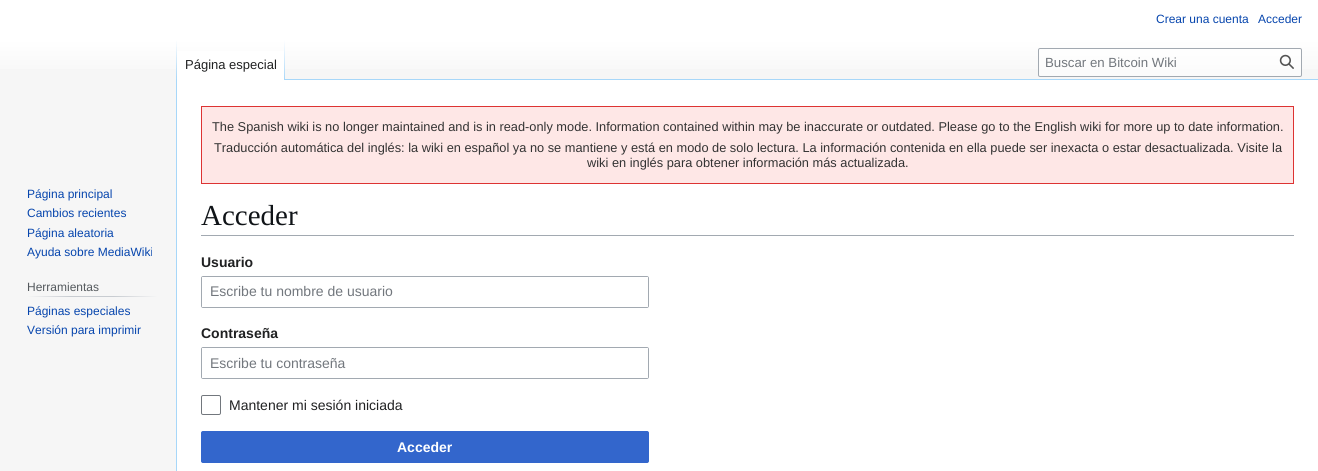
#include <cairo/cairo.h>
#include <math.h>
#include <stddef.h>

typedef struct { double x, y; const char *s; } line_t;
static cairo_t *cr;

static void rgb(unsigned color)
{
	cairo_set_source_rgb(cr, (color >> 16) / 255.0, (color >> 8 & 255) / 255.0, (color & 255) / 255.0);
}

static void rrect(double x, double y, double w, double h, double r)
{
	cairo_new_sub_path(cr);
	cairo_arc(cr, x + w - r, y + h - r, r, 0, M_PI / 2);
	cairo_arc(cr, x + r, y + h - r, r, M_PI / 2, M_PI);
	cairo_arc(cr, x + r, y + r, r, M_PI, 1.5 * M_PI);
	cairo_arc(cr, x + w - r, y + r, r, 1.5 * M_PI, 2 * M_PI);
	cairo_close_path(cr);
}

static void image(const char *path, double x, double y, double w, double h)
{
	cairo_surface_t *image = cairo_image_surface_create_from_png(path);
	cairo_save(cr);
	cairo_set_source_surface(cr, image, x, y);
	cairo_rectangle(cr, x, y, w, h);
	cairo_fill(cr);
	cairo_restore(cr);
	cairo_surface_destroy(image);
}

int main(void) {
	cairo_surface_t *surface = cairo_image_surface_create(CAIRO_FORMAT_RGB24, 1318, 471);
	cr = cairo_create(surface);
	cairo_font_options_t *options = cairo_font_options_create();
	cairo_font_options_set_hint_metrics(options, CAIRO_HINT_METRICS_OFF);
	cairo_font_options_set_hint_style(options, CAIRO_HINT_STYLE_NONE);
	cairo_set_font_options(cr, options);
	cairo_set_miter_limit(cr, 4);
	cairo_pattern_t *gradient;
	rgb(0xf6f6f6);
	cairo_paint(cr);
	gradient = cairo_pattern_create_linear(659, 0, 659, 80);
	cairo_pattern_add_color_stop_rgba(gradient, 0.5, 1, 1, 1, 1);
	cairo_pattern_add_color_stop_rgba(gradient, 1, 0.965, 0.965, 0.965, 1);
	cairo_set_source(cr, gradient);
	cairo_pattern_destroy(gradient);
	cairo_rectangle(cr, 0, 0, 1318, 69);
	cairo_fill(cr);
	rgb(0xa7d7f9);
	cairo_rectangle(cr, 176, 79, 1, 392);
	cairo_fill(cr);
	gradient = cairo_pattern_create_linear(177, 40, 177, 80);
	cairo_pattern_add_color_stop_rgba(gradient, 0, 0.655, 0.843, 0.976, 0);
	cairo_pattern_add_color_stop_rgba(gradient, 1, 0.655, 0.843, 0.976, 1);
	cairo_set_source(cr, gradient);
	cairo_pattern_destroy(gradient);
	cairo_rectangle(cr, 176, 40, 1, 40);
	cairo_fill(cr);
	rgb(0xffffff);
	cairo_rectangle(cr, 177, 51, 107, 29);
	cairo_fill(cr);
	gradient = cairo_pattern_create_linear(285, 40, 285, 80);
	cairo_pattern_add_color_stop_rgba(gradient, 0, 1, 1, 1, 1);
	cairo_pattern_add_color_stop_rgba(gradient, 1, 0.655, 0.843, 0.976, 1);
	cairo_set_source(cr, gradient);
	cairo_pattern_destroy(gradient);
	cairo_rectangle(cr, 284, 40, 1, 40);
	cairo_fill(cr);
	cairo_set_source_rgba(cr, 1, 1, 1, 0.5);
	rrect(1038.5, 48.5, 263, 28, 1.5);
	cairo_fill_preserve(cr);
	rgb(0xa2a9b1);
	cairo_set_line_width(cr, 1);
	cairo_stroke(cr);
	image("img/1.png", 1279, 54, 15, 15);
	gradient = cairo_pattern_create_linear(27, 297, 158, 297);
	cairo_pattern_add_color_stop_rgba(gradient, 0, 0.965, 0.965, 0.965, 1);
	cairo_pattern_add_color_stop_rgba(gradient, 0.33, 0.784, 0.8, 0.82, 1);
	cairo_pattern_add_color_stop_rgba(gradient, 0.66, 0.784, 0.8, 0.82, 1);
	cairo_pattern_add_color_stop_rgba(gradient, 1, 0.965, 0.965, 0.965, 1);
	cairo_set_source(cr, gradient);
	cairo_pattern_destroy(gradient);
	cairo_rectangle(cr, 27, 296, 131, 1);
	cairo_fill(cr);
	rgb(0xffffff);
	cairo_rectangle(cr, 177, 80, 1141, 391);
	cairo_fill(cr);
	rgb(0xa7d7f9);
	cairo_rectangle(cr, 285, 79, 1033, 1);
	cairo_fill(cr);
	rgb(0xfee7e6);
	cairo_rectangle(cr, 201.5, 106.5, 1092, 77);
	cairo_fill_preserve(cr);
	rgb(0xdd3333);
	cairo_stroke(cr);
	rgb(0xa2a9b1);
	cairo_rectangle(cr, 201, 235, 1093, 1);
	cairo_fill(cr);
	cairo_set_fill_rule(cr, CAIRO_FILL_RULE_EVEN_ODD);
	cairo_new_path(cr);
	cairo_move_to(cr, 203, 276);
	cairo_curve_to(cr, 202, 276, 201, 277, 201, 278);
	cairo_line_to(cr, 201, 306);
	cairo_curve_to(cr, 201, 307, 202, 308, 203, 308);
	cairo_line_to(cr, 647, 308);
	cairo_curve_to(cr, 648, 308, 649, 307, 649, 306);
	cairo_line_to(cr, 649, 278);
	cairo_curve_to(cr, 649, 277, 648, 276, 647, 276);
	cairo_close_path(cr);
	cairo_move_to(cr, 202, 277);
	cairo_line_to(cr, 202, 307);
	cairo_line_to(cr, 648, 307);
	cairo_line_to(cr, 648, 277);
	cairo_close_path(cr);
	cairo_fill(cr);
	cairo_new_path(cr);
	cairo_move_to(cr, 203, 347);
	cairo_curve_to(cr, 202, 347, 201, 348, 201, 349);
	cairo_line_to(cr, 201, 377);
	cairo_curve_to(cr, 201, 378, 202, 379, 203, 379);
	cairo_line_to(cr, 647, 379);
	cairo_curve_to(cr, 648, 379, 649, 378, 649, 377);
	cairo_line_to(cr, 649, 349);
	cairo_curve_to(cr, 649, 348, 648, 347, 647, 347);
	cairo_close_path(cr);
	cairo_move_to(cr, 202, 348);
	cairo_line_to(cr, 202, 378);
	cairo_line_to(cr, 648, 378);
	cairo_line_to(cr, 648, 348);
	cairo_close_path(cr);
	cairo_fill(cr);
	rrect(201.5, 395.5, 19, 19, 1.5);
	rgb(0x72777d);
	cairo_stroke(cr);
	rgb(0x3366cc);
	rrect(201.5, 431.5, 447, 31, 1.5);
	cairo_fill_preserve(cr);
	cairo_stroke(cr);
	cairo_select_font_face(cr, "Liberation Sans", CAIRO_FONT_SLANT_NORMAL, CAIRO_FONT_WEIGHT_NORMAL);
	cairo_set_font_size(cr, 12);
	rgb(0x0645ad);
	cairo_move_to(cr, 1156, 23);
	cairo_show_text(cr, "Crear una cuenta");
	cairo_move_to(cr, 1258, 23);
	cairo_show_text(cr, "Acceder");
	cairo_set_font_size(cr, 13);
	rgb(0x202122);
	cairo_move_to(cr, 185, 69);
	cairo_show_text(cr, "Página especial");
	cairo_set_font_size(cr, 13.25);
	rgb(0x72777d);
	cairo_move_to(cr, 1045, 67);
	cairo_show_text(cr, "Buscar en Bitcoin Wiki");
	cairo_set_font_size(cr, 12);
	rgb(0x0645ad);
	{
		static const line_t items[] = {
			{27, 198, "Página principal"},
			{27, 217, "Cambios recientes"},
			{27, 237, "Página aleatoria"},
			{27, 256, "Ayuda sobre MediaWiki"},
		};
		for (size_t i = 0; i < sizeof items / sizeof *items; i++) {
			cairo_move_to(cr, items[i].x, items[i].y);
			cairo_show_text(cr, items[i].s);
		}
	}
	rgb(0x54595d);
	cairo_move_to(cr, 27, 291);
	cairo_show_text(cr, "Herramientas");
	rgb(0x0645ad);
	cairo_move_to(cr, 27, 315);
	cairo_show_text(cr, "Páginas especiales");
	cairo_move_to(cr, 27, 334);
	cairo_show_text(cr, "Versión para imprimir");
	cairo_set_font_size(cr, 12.8);
	rgb(0x333333);
	{
		static const line_t items[] = {
			{212, 131, "The Spanish wiki is no longer maintained and is in read-only mode. Information contained within may be inaccurate or outdated. Please go to the English wiki for more up to date information."},
			{214, 152, "Traducción automática del inglés: la wiki en español ya no se mantiene y está en modo de solo lectura. La información contenida en ella puede ser inexacta o estar desactualizada. Visite la"},
			{587, 167, "wiki en inglés para obtener información más actualizada."},
		};
		for (size_t i = 0; i < sizeof items / sizeof *items; i++) {
			cairo_move_to(cr, items[i].x, items[i].y);
			cairo_show_text(cr, items[i].s);
		}
	}
	cairo_select_font_face(cr, "Liberation Serif", CAIRO_FONT_SLANT_NORMAL, CAIRO_FONT_WEIGHT_NORMAL);
	cairo_set_font_size(cr, 29);
	rgb(0x101418);
	cairo_move_to(cr, 201, 225);
	cairo_show_text(cr, "Acceder");
	cairo_select_font_face(cr, "Liberation Sans", CAIRO_FONT_SLANT_NORMAL, CAIRO_FONT_WEIGHT_BOLD);
	cairo_set_font_size(cr, 14);
	rgb(0x202122);
	cairo_move_to(cr, 201, 267);
	cairo_show_text(cr, "Usuario");
	cairo_select_font_face(cr, "Liberation Sans", CAIRO_FONT_SLANT_NORMAL, CAIRO_FONT_WEIGHT_NORMAL);
	rgb(0x72777d);
	cairo_move_to(cr, 210, 296);
	cairo_show_text(cr, "Escribe tu nombre de usuario");
	cairo_select_font_face(cr, "Liberation Sans", CAIRO_FONT_SLANT_NORMAL, CAIRO_FONT_WEIGHT_BOLD);
	rgb(0x202122);
	cairo_move_to(cr, 201, 338);
	cairo_show_text(cr, "Contraseña");
	cairo_select_font_face(cr, "Liberation Sans", CAIRO_FONT_SLANT_NORMAL, CAIRO_FONT_WEIGHT_NORMAL);
	rgb(0x72777d);
	cairo_move_to(cr, 210, 368);
	cairo_show_text(cr, "Escribe tu contraseña");
	rgb(0x202122);
	cairo_move_to(cr, 229, 410);
	cairo_show_text(cr, "Mantener mi sesión iniciada");
	cairo_select_font_face(cr, "Liberation Sans", CAIRO_FONT_SLANT_NORMAL, CAIRO_FONT_WEIGHT_BOLD);
	rgb(0xffffff);
	cairo_move_to(cr, 397, 452);
	cairo_show_text(cr, "Acceder");
	cairo_surface_write_to_png(surface, "page.png");
	cairo_font_options_destroy(options);
	cairo_destroy(cr);
	cairo_surface_destroy(surface);
	return 0;
}
